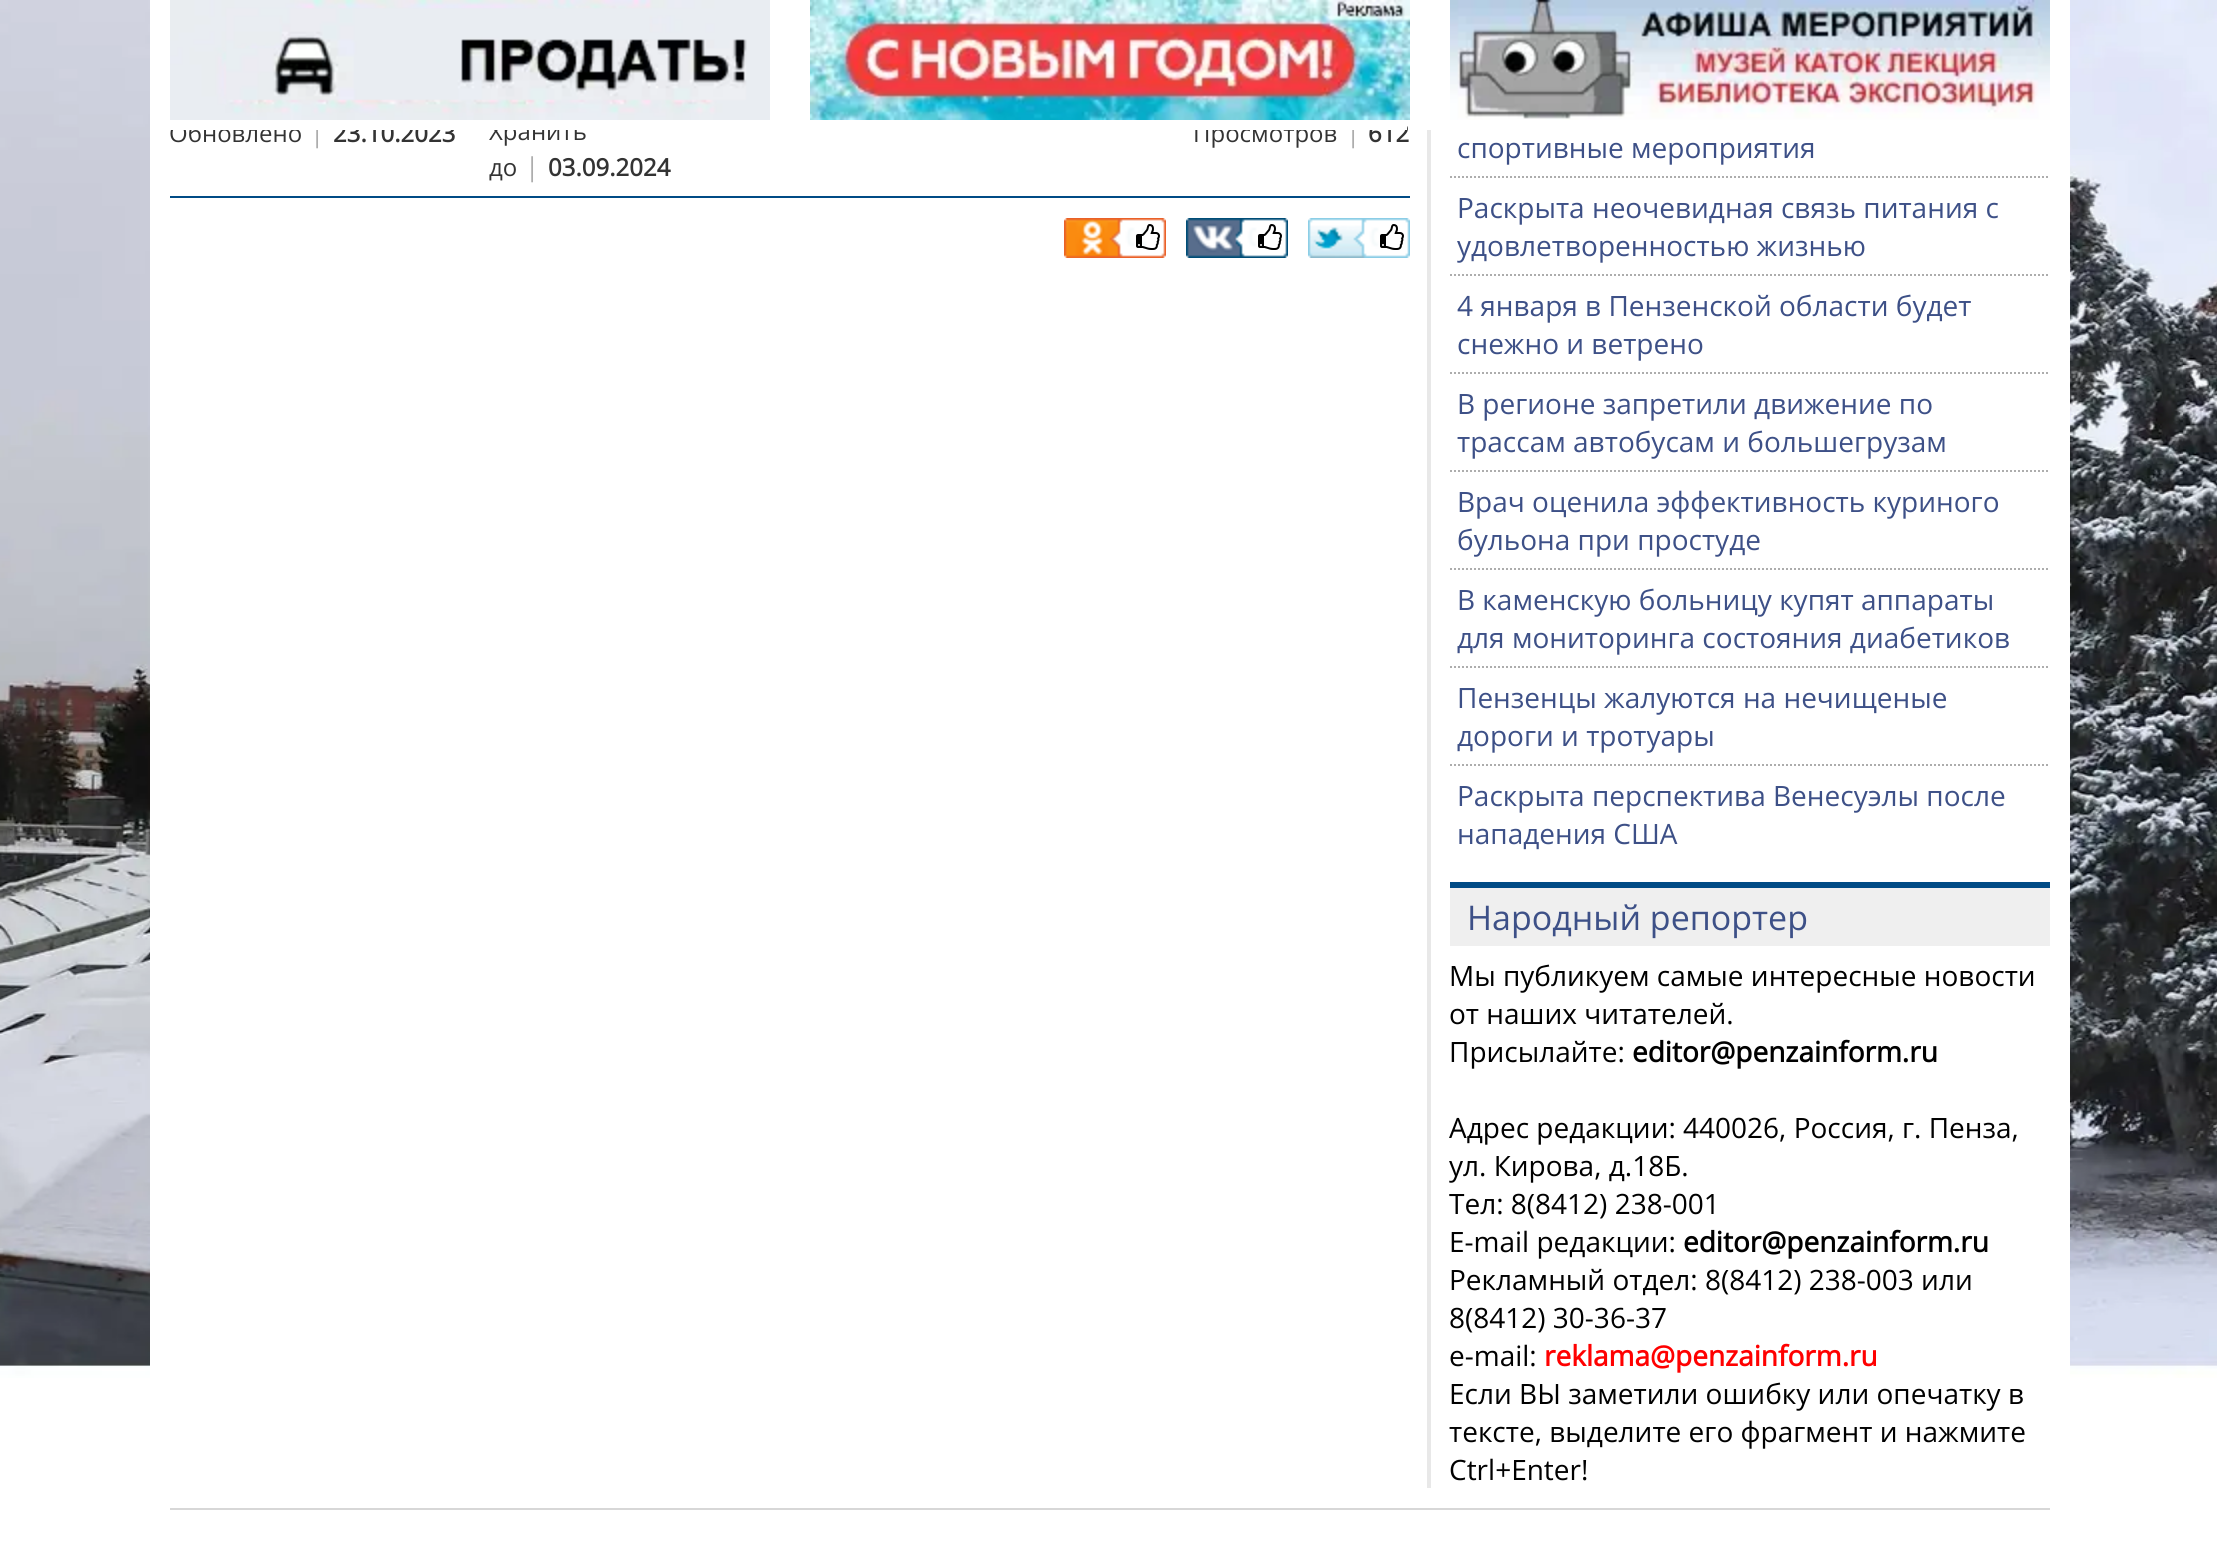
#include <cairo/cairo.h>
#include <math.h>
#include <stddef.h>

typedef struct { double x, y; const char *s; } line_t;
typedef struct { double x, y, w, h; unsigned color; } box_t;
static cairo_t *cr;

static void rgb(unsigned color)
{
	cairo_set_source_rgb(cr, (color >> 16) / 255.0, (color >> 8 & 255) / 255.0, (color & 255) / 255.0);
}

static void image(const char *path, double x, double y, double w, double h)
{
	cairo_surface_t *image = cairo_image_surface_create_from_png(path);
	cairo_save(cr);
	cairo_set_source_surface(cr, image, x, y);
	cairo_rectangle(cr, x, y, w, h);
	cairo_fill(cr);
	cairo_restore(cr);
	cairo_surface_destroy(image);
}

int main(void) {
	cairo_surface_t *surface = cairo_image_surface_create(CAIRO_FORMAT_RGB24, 2217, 1545);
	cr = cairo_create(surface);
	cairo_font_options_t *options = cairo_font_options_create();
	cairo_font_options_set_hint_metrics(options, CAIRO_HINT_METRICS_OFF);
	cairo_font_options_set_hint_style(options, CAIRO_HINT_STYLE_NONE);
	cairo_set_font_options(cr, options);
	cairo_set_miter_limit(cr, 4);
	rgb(0xffffff);
	cairo_paint(cr);
	image("img/1.png", 0, 0, 2217, 1378);
	rgb(0xffffff);
	cairo_rectangle(cr, 150, 0, 1920, 1378);
	cairo_fill(cr);
	image("img/2.png", 170, 0, 600, 120);
	image("img/3.png", 810, 0, 600, 120);
	image("img/4.png", 1450, 0, 600, 120);
	rgb(0xe8e8e8);
	cairo_rectangle(cr, 1427, 130, 4, 1358);
	cairo_fill(cr);
	rgb(0x004b85);
	cairo_rectangle(cr, 170, 196, 1240, 2);
	cairo_fill(cr);
	image("img/5.png", 1064, 218, 102, 40);
	image("img/6.png", 1136, 224, 24, 26);
	image("img/7.png", 1186, 218, 102, 40);
	image("img/8.png", 1258, 224, 24, 26);
	image("img/9.png", 1308, 218, 102, 40);
	image("img/8.png", 1380, 224, 24, 26);
	cairo_new_path(cr);
	cairo_move_to(cr, 1450, 177);
	cairo_line_to(cr, 2050, 177);
	rgb(0xadadad);
	cairo_set_dash(cr, (double[]){2, 2}, 2, 0);
	cairo_stroke(cr);
	cairo_new_path(cr);
	cairo_move_to(cr, 1450, 275);
	cairo_line_to(cr, 2050, 275);
	cairo_stroke(cr);
	cairo_new_path(cr);
	cairo_move_to(cr, 1450, 373);
	cairo_line_to(cr, 2050, 373);
	cairo_stroke(cr);
	cairo_new_path(cr);
	cairo_move_to(cr, 1450, 471);
	cairo_line_to(cr, 2050, 471);
	cairo_stroke(cr);
	cairo_new_path(cr);
	cairo_move_to(cr, 1450, 569);
	cairo_line_to(cr, 2050, 569);
	cairo_stroke(cr);
	cairo_new_path(cr);
	cairo_move_to(cr, 1450, 667);
	cairo_line_to(cr, 2050, 667);
	cairo_stroke(cr);
	cairo_new_path(cr);
	cairo_move_to(cr, 1450, 765);
	cairo_line_to(cr, 2050, 765);
	cairo_stroke(cr);
	{
		static const box_t items[] = {
			{1450, 888, 600, 58, 0xefefef},
			{1450, 882, 600, 6, 0x004b85},
			{170, 1508, 1880, 2, 0xd7d7d7},
		};
		for (size_t i = 0; i < sizeof items / sizeof *items; i++) {
			rgb(items[i].color);
			cairo_rectangle(cr, items[i].x, items[i].y, items[i].w, items[i].h);
			cairo_fill(cr);
		}
	}
	cairo_select_font_face(cr, "Open Sans", CAIRO_FONT_SLANT_NORMAL, CAIRO_FONT_WEIGHT_NORMAL);
	cairo_set_font_size(cr, 24);
	rgb(0x333333);
	cairo_move_to(cr, 169, 142);
	cairo_show_text(cr, "Обновлено");
	cairo_set_font_size(cr, 26);
	rgb(0xadadad);
	cairo_move_to(cr, 310, 142);
	cairo_show_text(cr, "|");
	cairo_select_font_face(cr, "Open Sans", CAIRO_FONT_SLANT_NORMAL, CAIRO_FONT_WEIGHT_BOLD);
	cairo_set_font_size(cr, 24);
	rgb(0x333333);
	cairo_move_to(cr, 333, 142);
	cairo_show_text(cr, "23.10.2023");
	cairo_select_font_face(cr, "Open Sans", CAIRO_FONT_SLANT_NORMAL, CAIRO_FONT_WEIGHT_NORMAL);
	cairo_move_to(cr, 489, 140);
	cairo_show_text(cr, "Хранить");
	cairo_move_to(cr, 489, 176);
	cairo_show_text(cr, "до");
	cairo_set_font_size(cr, 26);
	rgb(0xadadad);
	cairo_move_to(cr, 525, 176);
	cairo_show_text(cr, "|");
	cairo_select_font_face(cr, "Open Sans", CAIRO_FONT_SLANT_NORMAL, CAIRO_FONT_WEIGHT_BOLD);
	cairo_set_font_size(cr, 24);
	rgb(0x333333);
	cairo_move_to(cr, 548, 176);
	cairo_show_text(cr, "03.09.2024");
	cairo_select_font_face(cr, "Open Sans", CAIRO_FONT_SLANT_NORMAL, CAIRO_FONT_WEIGHT_NORMAL);
	cairo_move_to(cr, 1193, 142);
	cairo_show_text(cr, "Просмотров");
	cairo_set_font_size(cr, 26);
	rgb(0xadadad);
	cairo_move_to(cr, 1346, 142);
	cairo_show_text(cr, "|");
	cairo_select_font_face(cr, "Open Sans", CAIRO_FONT_SLANT_NORMAL, CAIRO_FONT_WEIGHT_BOLD);
	cairo_set_font_size(cr, 24);
	rgb(0x333333);
	cairo_move_to(cr, 1368, 142);
	cairo_show_text(cr, "612");
	rgb(0xffffff);
	cairo_rectangle(cr, 171, 122, 1236, 8);
	cairo_fill(cr);
	cairo_select_font_face(cr, "Open Sans", CAIRO_FONT_SLANT_NORMAL, CAIRO_FONT_WEIGHT_NORMAL);
	cairo_set_font_size(cr, 28);
	rgb(0x3d5087);
	{
		static const line_t items[] = {
			{1457, 158, "спортивные мероприятия"},
			{1457, 218, "Раскрыта неочевидная связь питания с"},
			{1457, 256, "удовлетворенностью жизнью"},
			{1457, 316, "4 января в Пензенской области будет"},
			{1457, 354, "снежно и ветрено"},
			{1457, 414, "В регионе запретили движение по"},
			{1457, 452, "трассам автобусам и большегрузам"},
			{1457, 512, "Врач оценила эффективность куриного"},
			{1457, 550, "бульона при простуде"},
			{1457, 610, "В каменскую больницу купят аппараты"},
			{1457, 648, "для мониторинга состояния диабетиков"},
			{1457, 708, "Пензенцы жалуются на нечищеные"},
			{1457, 746, "дороги и тротуары"},
			{1457, 806, "Раскрыта перспектива Венесуэлы после"},
			{1457, 844, "нападения США"},
		};
		for (size_t i = 0; i < sizeof items / sizeof *items; i++) {
			cairo_move_to(cr, items[i].x, items[i].y);
			cairo_show_text(cr, items[i].s);
		}
	}
	cairo_set_font_size(cr, 34);
	cairo_move_to(cr, 1467, 930);
	cairo_show_text(cr, "Народный репортер");
	cairo_set_font_size(cr, 28);
	rgb(0x000000);
	{
		static const line_t items[] = {
			{1449, 986, "Мы публикуем самые интересные новости"},
			{1449, 1024, "от наших читателей."},
			{1449, 1062, "Присылайте:"},
		};
		for (size_t i = 0; i < sizeof items / sizeof *items; i++) {
			cairo_move_to(cr, items[i].x, items[i].y);
			cairo_show_text(cr, items[i].s);
		}
	}
	cairo_select_font_face(cr, "Open Sans", CAIRO_FONT_SLANT_NORMAL, CAIRO_FONT_WEIGHT_BOLD);
	cairo_move_to(cr, 1632, 1062);
	cairo_show_text(cr, "editor@penzainform.ru");
	cairo_select_font_face(cr, "Open Sans", CAIRO_FONT_SLANT_NORMAL, CAIRO_FONT_WEIGHT_NORMAL);
	{
		static const line_t items[] = {
			{1449, 1138, "Адрес редакции: 440026, Россия, г. Пенза,"},
			{1449, 1176, "ул. Кирова, д.18Б."},
			{1449, 1214, "Тел: 8(8412) 238-001"},
			{1449, 1252, "E-mail редакции:"},
		};
		for (size_t i = 0; i < sizeof items / sizeof *items; i++) {
			cairo_move_to(cr, items[i].x, items[i].y);
			cairo_show_text(cr, items[i].s);
		}
	}
	cairo_select_font_face(cr, "Open Sans", CAIRO_FONT_SLANT_NORMAL, CAIRO_FONT_WEIGHT_BOLD);
	cairo_move_to(cr, 1683, 1252);
	cairo_show_text(cr, "editor@penzainform.ru");
	cairo_select_font_face(cr, "Open Sans", CAIRO_FONT_SLANT_NORMAL, CAIRO_FONT_WEIGHT_NORMAL);
	{
		static const line_t items[] = {
			{1449, 1290, "Рекламный отдел: 8(8412) 238-003 или"},
			{1449, 1328, "8(8412) 30-36-37"},
			{1449, 1366, "e-mail:"},
		};
		for (size_t i = 0; i < sizeof items / sizeof *items; i++) {
			cairo_move_to(cr, items[i].x, items[i].y);
			cairo_show_text(cr, items[i].s);
		}
	}
	cairo_select_font_face(cr, "Open Sans", CAIRO_FONT_SLANT_NORMAL, CAIRO_FONT_WEIGHT_BOLD);
	rgb(0xff0000);
	cairo_move_to(cr, 1544, 1366);
	cairo_show_text(cr, "reklama@penzainform.ru");
	cairo_select_font_face(cr, "Open Sans", CAIRO_FONT_SLANT_NORMAL, CAIRO_FONT_WEIGHT_NORMAL);
	rgb(0x000000);
	{
		static const line_t items[] = {
			{1449, 1404, "Если ВЫ заметили ошибку или опечатку в"},
			{1449, 1442, "тексте, выделите его фрагмент и нажмите"},
			{1449, 1480, "Ctrl+Enter!"},
		};
		for (size_t i = 0; i < sizeof items / sizeof *items; i++) {
			cairo_move_to(cr, items[i].x, items[i].y);
			cairo_show_text(cr, items[i].s);
		}
	}
	cairo_surface_write_to_png(surface, "page.png");
	cairo_font_options_destroy(options);
	cairo_destroy(cr);
	cairo_surface_destroy(surface);
	return 0;
}
